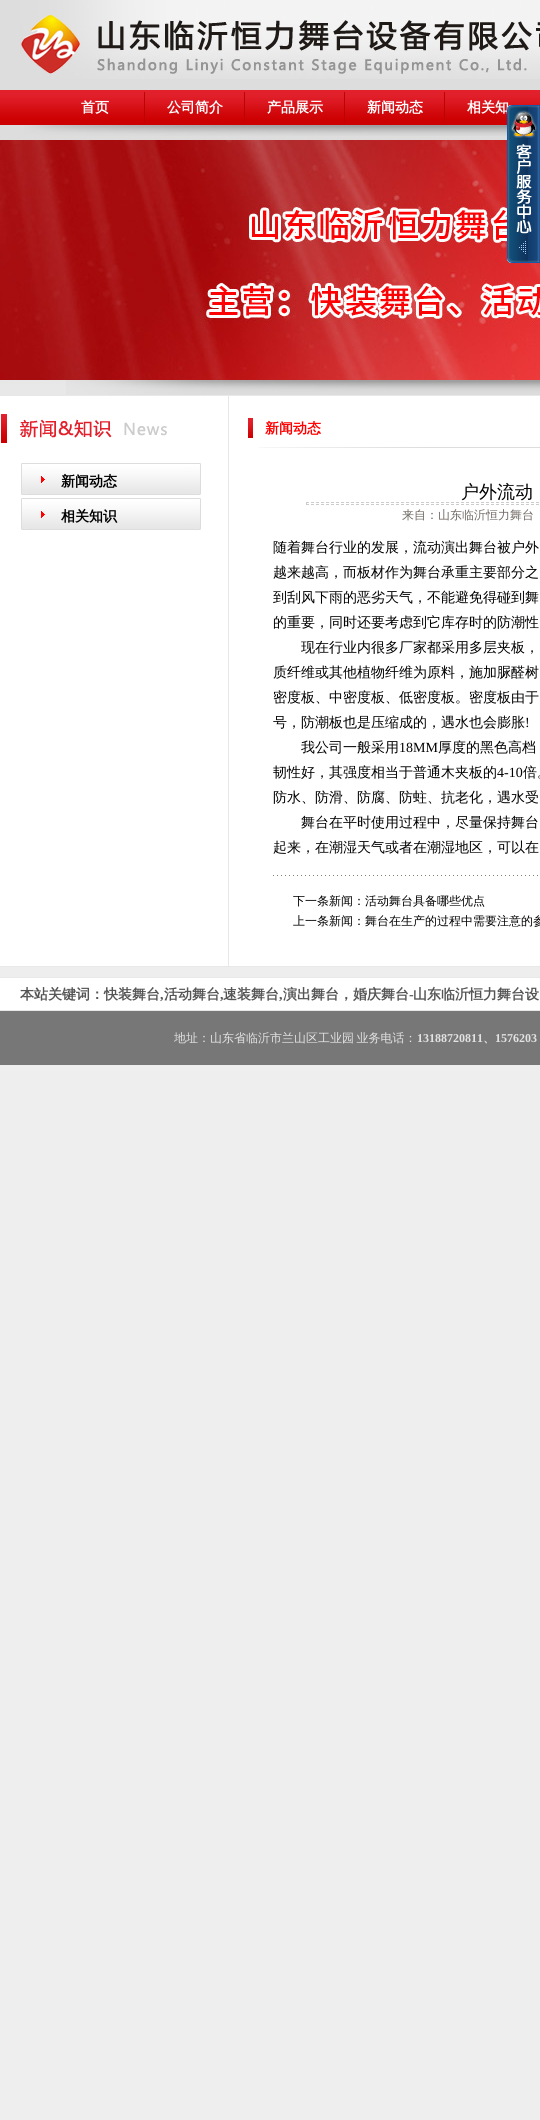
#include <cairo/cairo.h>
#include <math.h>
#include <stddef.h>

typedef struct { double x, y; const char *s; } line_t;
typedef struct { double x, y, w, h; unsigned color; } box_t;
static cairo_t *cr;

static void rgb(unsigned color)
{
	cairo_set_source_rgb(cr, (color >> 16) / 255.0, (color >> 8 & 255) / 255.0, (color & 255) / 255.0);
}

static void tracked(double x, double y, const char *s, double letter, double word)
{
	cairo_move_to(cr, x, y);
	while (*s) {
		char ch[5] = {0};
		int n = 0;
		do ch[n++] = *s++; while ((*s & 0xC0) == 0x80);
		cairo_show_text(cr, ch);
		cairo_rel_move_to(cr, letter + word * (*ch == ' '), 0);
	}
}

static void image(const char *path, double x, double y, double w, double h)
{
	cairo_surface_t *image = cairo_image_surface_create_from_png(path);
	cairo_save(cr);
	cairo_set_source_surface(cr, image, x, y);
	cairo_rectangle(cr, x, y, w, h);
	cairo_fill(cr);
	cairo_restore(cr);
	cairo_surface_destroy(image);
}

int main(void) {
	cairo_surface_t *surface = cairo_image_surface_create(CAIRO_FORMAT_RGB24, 540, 2120);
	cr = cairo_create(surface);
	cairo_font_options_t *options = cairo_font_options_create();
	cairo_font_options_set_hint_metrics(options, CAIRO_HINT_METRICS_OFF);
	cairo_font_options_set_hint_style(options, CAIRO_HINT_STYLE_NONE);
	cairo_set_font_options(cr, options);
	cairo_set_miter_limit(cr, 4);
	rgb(0xeeeeee);
	cairo_paint(cr);
	image("img/1.png", 0, 0, 540, 396);
	image("img/2.png", 20, 0, 520, 79);
	image("img/3.png", 144, 92, 1, 31);
	image("img/3.png", 244, 92, 1, 31);
	image("img/3.png", 344, 92, 1, 31);
	image("img/3.png", 444, 92, 1, 31);
	image("img/5.png", 24, 125, 483, 11);
	image("img/6.png", 0, 140, 540, 240);
	image("img/7.png", 66, 380, 474, 15);
	rgb(0xffffff);
	cairo_rectangle(cr, 0, 396, 540, 570);
	cairo_fill(cr);
	image("img/8.png", 1, 414, 166, 29);
	image("img/9.png", 21, 463, 180, 32);
	image("img/9.png", 21, 498, 180, 32);
	rgb(0xe8e8e8);
	cairo_rectangle(cr, 228, 396, 1, 570);
	cairo_fill(cr);
	image("img/10.png", 248, 418, 5, 20);
	image("img/11.png", 258, 447, 282, 1);
	cairo_new_path(cr);
	cairo_move_to(cr, 306, 502.5);
	cairo_line_to(cr, 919, 502.5);
	rgb(0xcccccc);
	cairo_set_line_width(cr, 1);
	cairo_set_dash(cr, (double[]){3, 2}, 2, 0);
	cairo_stroke(cr);
	cairo_new_path(cr);
	cairo_move_to(cr, 306, 504.5);
	cairo_line_to(cr, 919, 504.5);
	cairo_stroke(cr);
	cairo_rectangle(cr, 306, 502, 1, 3);
	cairo_fill(cr);
	image("img/12.png", 273, 875, 265, 1);
	{
		static const box_t items[] = {
			{0, 966, 540, 1, 0xe9e8e8},
			{0, 977, 540, 1, 0xe9e8e8},
			{0, 978, 540, 32, 0xffffff},
			{0, 1010, 540, 1, 0xe9e8e8},
			{0, 1011, 540, 54, 0x777777},
		};
		for (size_t i = 0; i < sizeof items / sizeof *items; i++) {
			rgb(items[i].color);
			cairo_rectangle(cr, items[i].x, items[i].y, items[i].w, items[i].h);
			cairo_fill(cr);
		}
	}
	cairo_select_font_face(cr, "WenQuanYi Zen Hei", CAIRO_FONT_SLANT_NORMAL, CAIRO_FONT_WEIGHT_BOLD);
	cairo_set_font_size(cr, 14);
	rgb(0xffffff);
	{
		static const line_t items[] = {
			{81, 112, "首页"},
			{167, 112, "公司简介"},
			{267, 112, "产品展示"},
			{367, 112, "新闻动态"},
			{467, 112, "相关知"},
		};
		for (size_t i = 0; i < sizeof items / sizeof *items; i++) {
			cairo_move_to(cr, items[i].x, items[i].y);
			cairo_show_text(cr, items[i].s);
		}
	}
	image("img/4.png", 507, 105, 33, 158);
	rgb(0x000000);
	cairo_move_to(cr, 61, 486);
	cairo_show_text(cr, "新闻动态");
	cairo_move_to(cr, 61, 521);
	cairo_show_text(cr, "相关知识");
	rgb(0xff0000);
	cairo_move_to(cr, 265, 433);
	cairo_show_text(cr, "新闻动态");
	cairo_select_font_face(cr, "WenQuanYi Zen Hei Medium", CAIRO_FONT_SLANT_NORMAL, CAIRO_FONT_WEIGHT_NORMAL);
	cairo_set_font_size(cr, 18);
	rgb(0x000000);
	cairo_move_to(cr, 461, 498);
	cairo_show_text(cr, "户外流动");
	cairo_set_font_size(cr, 12);
	rgb(0x716964);
	cairo_move_to(cr, 402, 519);
	cairo_show_text(cr, "来自：山东临沂恒力舞台");
	cairo_set_font_size(cr, 14);
	rgb(0x000000);
	{
		static const line_t items[] = {
			{273, 552, "随着舞台行业的发展，流动演出舞台被户外"},
			{273, 577, "越来越高，而板材作为舞台承重主要部分之"},
			{273, 602, "到刮风下雨的恶劣天气，不能避免得碰到舞"},
			{273, 627, "的重要，同时还要考虑到它库存时的防潮性"},
			{301, 652, "现在行业内很多厂家都采用多层夹板，"},
			{273, 677, "质纤维或其他植物纤维为原料，施加脲醛树"},
			{273, 702, "密度板、中密度板、低密度板。密度板由于"},
			{273, 727, "号，防潮板也是压缩成的，遇水也会膨胀"},
		};
		for (size_t i = 0; i < sizeof items / sizeof *items; i++) {
			cairo_move_to(cr, items[i].x, items[i].y);
			cairo_show_text(cr, items[i].s);
		}
	}
	cairo_select_font_face(cr, "Liberation Serif", CAIRO_FONT_SLANT_NORMAL, CAIRO_FONT_WEIGHT_NORMAL);
	cairo_move_to(cr, 525, 727);
	cairo_show_text(cr, "!");
	cairo_select_font_face(cr, "WenQuanYi Zen Hei Medium", CAIRO_FONT_SLANT_NORMAL, CAIRO_FONT_WEIGHT_NORMAL);
	cairo_move_to(cr, 301, 752);
	cairo_show_text(cr, "我公司一般采用");
	cairo_select_font_face(cr, "Liberation Serif", CAIRO_FONT_SLANT_NORMAL, CAIRO_FONT_WEIGHT_NORMAL);
	cairo_move_to(cr, 399, 752);
	cairo_show_text(cr, "18MM");
	cairo_select_font_face(cr, "WenQuanYi Zen Hei Medium", CAIRO_FONT_SLANT_NORMAL, CAIRO_FONT_WEIGHT_NORMAL);
	cairo_move_to(cr, 438, 752);
	cairo_show_text(cr, "厚度的黑色高档");
	cairo_move_to(cr, 273, 777);
	cairo_show_text(cr, "韧性好，其强度相当于普通木夹板的");
	cairo_select_font_face(cr, "Liberation Serif", CAIRO_FONT_SLANT_NORMAL, CAIRO_FONT_WEIGHT_NORMAL);
	cairo_move_to(cr, 497, 777);
	cairo_show_text(cr, "4-10");
	cairo_select_font_face(cr, "WenQuanYi Zen Hei Medium", CAIRO_FONT_SLANT_NORMAL, CAIRO_FONT_WEIGHT_NORMAL);
	tracked(523, 777, "倍。", 0, -1);
	{
		static const line_t items[] = {
			{273, 802, "防水、防滑、防腐、防蛀、抗老化，遇水受"},
			{301, 827, "舞台在平时使用过程中，尽量保持舞台"},
			{273, 852, "起来，在潮湿天气或者在潮湿地区，可以在"},
		};
		for (size_t i = 0; i < sizeof items / sizeof *items; i++) {
			cairo_move_to(cr, items[i].x, items[i].y);
			cairo_show_text(cr, items[i].s);
		}
	}
	cairo_set_font_size(cr, 12);
	cairo_move_to(cr, 293, 905);
	cairo_show_text(cr, "下一条新闻：活动舞台具备哪些优点");
	cairo_move_to(cr, 293, 925);
	cairo_show_text(cr, "上一条新闻：舞台在生产的过程中需要注意的参");
	cairo_select_font_face(cr, "WenQuanYi Zen Hei", CAIRO_FONT_SLANT_NORMAL, CAIRO_FONT_WEIGHT_BOLD);
	cairo_set_font_size(cr, 14);
	rgb(0x555555);
	cairo_move_to(cr, 20, 999);
	cairo_show_text(cr, "本站关键词：快装舞台");
	cairo_select_font_face(cr, "Liberation Serif", CAIRO_FONT_SLANT_NORMAL, CAIRO_FONT_WEIGHT_BOLD);
	cairo_move_to(cr, 160, 999);
	cairo_show_text(cr, ",");
	cairo_select_font_face(cr, "WenQuanYi Zen Hei", CAIRO_FONT_SLANT_NORMAL, CAIRO_FONT_WEIGHT_BOLD);
	cairo_move_to(cr, 164, 999);
	cairo_show_text(cr, "活动舞台");
	cairo_select_font_face(cr, "Liberation Serif", CAIRO_FONT_SLANT_NORMAL, CAIRO_FONT_WEIGHT_BOLD);
	cairo_move_to(cr, 220, 999);
	cairo_show_text(cr, ",");
	cairo_select_font_face(cr, "WenQuanYi Zen Hei", CAIRO_FONT_SLANT_NORMAL, CAIRO_FONT_WEIGHT_BOLD);
	cairo_move_to(cr, 223, 999);
	cairo_show_text(cr, "速装舞台");
	cairo_select_font_face(cr, "Liberation Serif", CAIRO_FONT_SLANT_NORMAL, CAIRO_FONT_WEIGHT_BOLD);
	cairo_move_to(cr, 279, 999);
	cairo_show_text(cr, ",");
	cairo_select_font_face(cr, "WenQuanYi Zen Hei", CAIRO_FONT_SLANT_NORMAL, CAIRO_FONT_WEIGHT_BOLD);
	cairo_move_to(cr, 283, 999);
	cairo_show_text(cr, "演出舞台，婚庆舞台");
	cairo_select_font_face(cr, "Liberation Serif", CAIRO_FONT_SLANT_NORMAL, CAIRO_FONT_WEIGHT_BOLD);
	cairo_move_to(cr, 409, 999);
	cairo_show_text(cr, "-");
	cairo_select_font_face(cr, "WenQuanYi Zen Hei", CAIRO_FONT_SLANT_NORMAL, CAIRO_FONT_WEIGHT_BOLD);
	cairo_move_to(cr, 413, 999);
	cairo_show_text(cr, "山东临沂恒力舞台设");
	cairo_select_font_face(cr, "WenQuanYi Zen Hei Medium", CAIRO_FONT_SLANT_NORMAL, CAIRO_FONT_WEIGHT_NORMAL);
	cairo_set_font_size(cr, 12);
	rgb(0xe3e3e3);
	tracked(174, 1042, "地址：山东省临沂市兰山区工业园 业务电话：", 0, -1);
	cairo_select_font_face(cr, "Liberation Serif", CAIRO_FONT_SLANT_NORMAL, CAIRO_FONT_WEIGHT_BOLD);
	cairo_move_to(cr, 417, 1042);
	cairo_show_text(cr, "13188720811");
	cairo_select_font_face(cr, "WenQuanYi Zen Hei", CAIRO_FONT_SLANT_NORMAL, CAIRO_FONT_WEIGHT_BOLD);
	cairo_move_to(cr, 483, 1042);
	cairo_show_text(cr, "、");
	cairo_select_font_face(cr, "Liberation Serif", CAIRO_FONT_SLANT_NORMAL, CAIRO_FONT_WEIGHT_BOLD);
	cairo_move_to(cr, 495, 1042);
	cairo_show_text(cr, "1576203");
	cairo_surface_write_to_png(surface, "page.png");
	cairo_font_options_destroy(options);
	cairo_destroy(cr);
	cairo_surface_destroy(surface);
	return 0;
}
